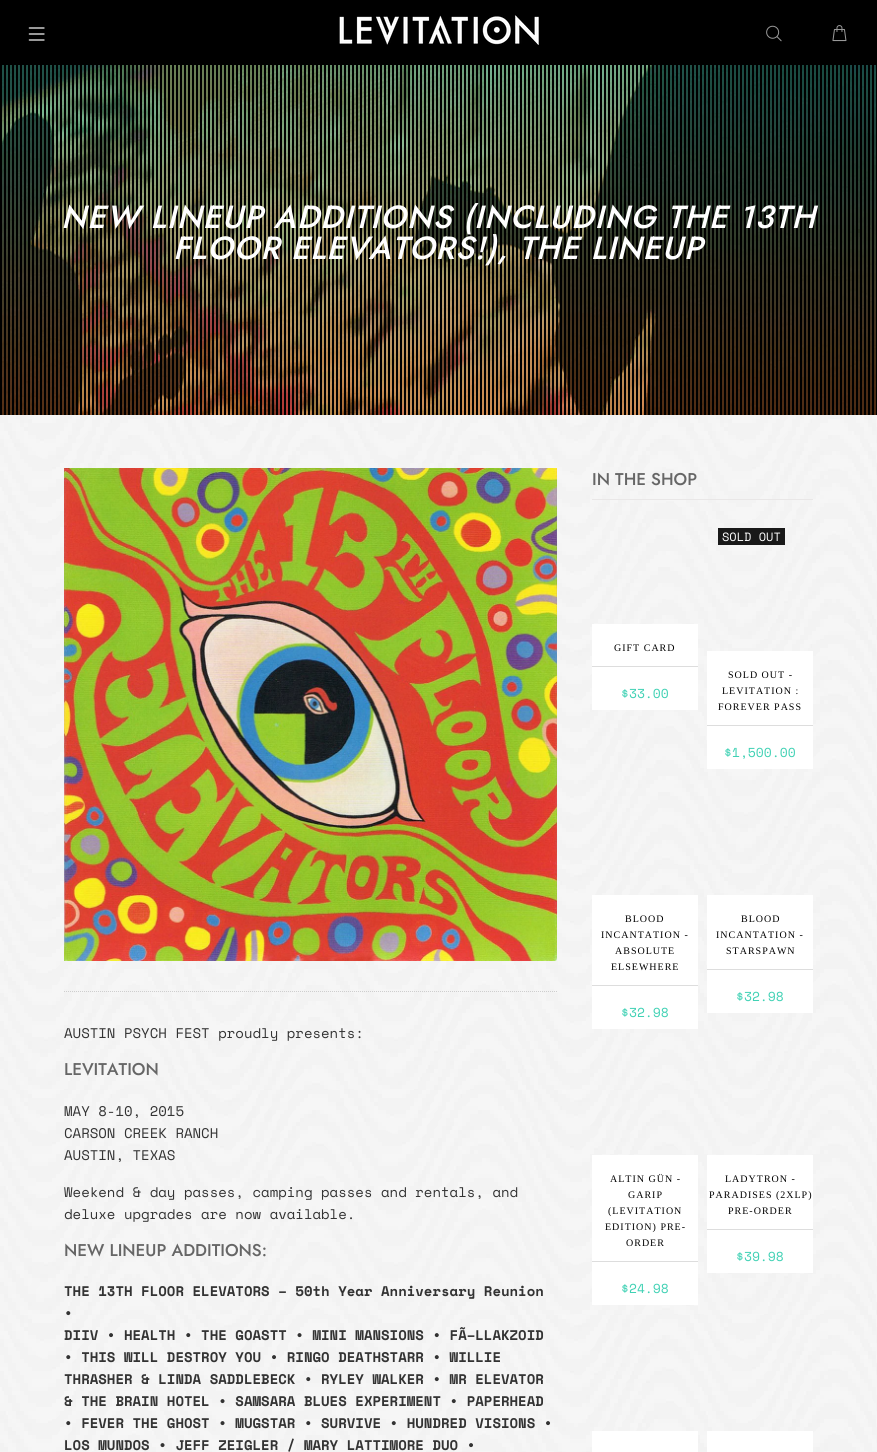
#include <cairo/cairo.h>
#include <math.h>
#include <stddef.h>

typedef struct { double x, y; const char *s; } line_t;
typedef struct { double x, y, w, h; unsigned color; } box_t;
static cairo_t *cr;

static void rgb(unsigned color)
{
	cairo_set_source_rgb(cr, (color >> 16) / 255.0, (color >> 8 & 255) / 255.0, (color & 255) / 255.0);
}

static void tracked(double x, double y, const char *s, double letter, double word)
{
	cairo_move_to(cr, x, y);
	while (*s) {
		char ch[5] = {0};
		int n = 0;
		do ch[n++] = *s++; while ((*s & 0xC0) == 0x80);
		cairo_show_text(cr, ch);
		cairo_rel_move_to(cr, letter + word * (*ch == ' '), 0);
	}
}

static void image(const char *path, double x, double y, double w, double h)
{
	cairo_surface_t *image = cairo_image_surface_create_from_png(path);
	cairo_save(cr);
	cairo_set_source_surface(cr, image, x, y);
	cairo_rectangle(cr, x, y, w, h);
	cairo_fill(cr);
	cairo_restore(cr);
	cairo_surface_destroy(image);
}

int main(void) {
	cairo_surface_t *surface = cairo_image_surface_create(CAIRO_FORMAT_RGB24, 877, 1452);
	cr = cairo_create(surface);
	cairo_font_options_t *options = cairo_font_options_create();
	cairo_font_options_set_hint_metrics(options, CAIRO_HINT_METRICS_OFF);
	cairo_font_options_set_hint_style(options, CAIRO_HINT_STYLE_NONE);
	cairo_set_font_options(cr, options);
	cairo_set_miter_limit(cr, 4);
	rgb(0x000000);
	cairo_paint(cr);
	image("img/1.png", 28, 27, 17, 14);
	image("img/2.png", 339, 15, 200, 30);
	image("img/3.png", 766, 25, 16, 17);
	image("img/4.png", 832, 25, 15, 17);
	image("img/5.png", 2, 65, 874, 350);
	image("img/6.png", 0, 65, 877, 350);
	image("img/7.png", 0, 415, 877, 1037);
	cairo_new_path(cr);
	cairo_move_to(cr, 64, 991.5);
	cairo_line_to(cr, 557, 991.5);
	rgb(0xcecece);
	cairo_set_line_width(cr, 1);
	cairo_set_dash(cr, (double[]){1, 1}, 2, 0);
	cairo_stroke(cr);
	image("img/8.png", 64, 468, 493, 493);
	{
		static const box_t items[] = {
			{592, 499, 221, 1, 0xe9e7e7},
			{592, 624, 106, 86, 0xffffff},
			{592, 666, 106, 1, 0xdddddd},
			{718, 528, 67, 17, 0x191919},
			{707, 651, 106, 118, 0xffffff},
			{707, 725, 106, 1, 0xdddddd},
			{592, 895, 106, 134, 0xffffff},
			{592, 985, 106, 1, 0xdddddd},
			{707, 895, 106, 118, 0xffffff},
			{707, 969, 106, 1, 0xdddddd},
			{592, 1155, 106, 150, 0xffffff},
			{592, 1261, 106, 1, 0xdddddd},
			{707, 1155, 106, 118, 0xffffff},
			{707, 1229, 106, 1, 0xdddddd},
			{592, 1431, 106, 21, 0xffffff},
			{707, 1431, 106, 21, 0xffffff},
		};
		for (size_t i = 0; i < sizeof items / sizeof *items; i++) {
			rgb(items[i].color);
			cairo_rectangle(cr, items[i].x, items[i].y, items[i].w, items[i].h);
			cairo_fill(cr);
		}
	}
	cairo_select_font_face(cr, "Jost Medium", CAIRO_FONT_SLANT_ITALIC, CAIRO_FONT_WEIGHT_NORMAL);
	cairo_set_font_size(cr, 32);
	tracked(61, 228, "NEW LINEUP ADDITIONS (INCLUDING THE 13TH", 0.95, 0);
	tracked(173, 259, "FLOOR ELEVATORS!), THE LINEUP", 0.95, 0);
	cairo_select_font_face(cr, "Space Mono", CAIRO_FONT_SLANT_NORMAL, CAIRO_FONT_WEIGHT_NORMAL);
	cairo_set_font_size(cr, 14);
	rgb(0x333333);
	cairo_move_to(cr, 64, 1038);
	cairo_show_text(cr, "AUSTIN PSYCH FEST proudly presents:");
	cairo_select_font_face(cr, "Jost Medium", CAIRO_FONT_SLANT_NORMAL, CAIRO_FONT_WEIGHT_NORMAL);
	cairo_set_font_size(cr, 17);
	rgb(0x666666);
	cairo_move_to(cr, 64, 1075);
	cairo_show_text(cr, "LEVITATION");
	cairo_select_font_face(cr, "Space Mono", CAIRO_FONT_SLANT_NORMAL, CAIRO_FONT_WEIGHT_NORMAL);
	cairo_set_font_size(cr, 14);
	rgb(0x333333);
	{
		static const line_t items[] = {
			{64, 1116, "MAY 8-10, 2015"},
			{64, 1138, "CARSON CREEK RANCH"},
			{64, 1160, "AUSTIN, TEXAS"},
			{64, 1197, "Weekend & day passes, camping passes and rentals, and"},
			{64, 1219, "deluxe upgrades are now available."},
		};
		for (size_t i = 0; i < sizeof items / sizeof *items; i++) {
			cairo_move_to(cr, items[i].x, items[i].y);
			cairo_show_text(cr, items[i].s);
		}
	}
	cairo_select_font_face(cr, "Jost Medium", CAIRO_FONT_SLANT_NORMAL, CAIRO_FONT_WEIGHT_NORMAL);
	cairo_set_font_size(cr, 17);
	rgb(0x666666);
	cairo_move_to(cr, 64, 1256);
	cairo_show_text(cr, "NEW LINEUP ADDITIONS:");
	cairo_select_font_face(cr, "Space Mono", CAIRO_FONT_SLANT_NORMAL, CAIRO_FONT_WEIGHT_BOLD);
	cairo_set_font_size(cr, 14);
	rgb(0x333333);
	{
		static const line_t items[] = {
			{64, 1296, "THE 13TH FLOOR ELEVATORS – 50th Year Anniversary Reunion"},
			{64, 1318, "•"},
			{64, 1340, "DIIV • HEALTH • THE GOASTT • MINI MANSIONS • FÃ–LLAKZOID"},
			{64, 1362, "• THIS WILL DESTROY YOU • RINGO DEATHSTARR • WILLIE"},
			{64, 1384, "THRASHER & LINDA SADDLEBECK • RYLEY WALKER • MR ELEVATOR"},
			{64, 1406, "& THE BRAIN HOTEL • SAMSARA BLUES EXPERIMENT • PAPERHEAD"},
			{64, 1428, "• FEVER THE GHOST • MUGSTAR • SURVIVE • HUNDRED VISIONS •"},
			{64, 1450, "LOS MUNDOS • JEFF ZEIGLER / MARY LATTIMORE DUO •"},
		};
		for (size_t i = 0; i < sizeof items / sizeof *items; i++) {
			cairo_move_to(cr, items[i].x, items[i].y);
			cairo_show_text(cr, items[i].s);
		}
	}
	cairo_select_font_face(cr, "Jost Medium", CAIRO_FONT_SLANT_NORMAL, CAIRO_FONT_WEIGHT_NORMAL);
	cairo_set_font_size(cr, 17);
	rgb(0x666666);
	cairo_move_to(cr, 592, 485);
	cairo_show_text(cr, "IN THE SHOP");
	cairo_select_font_face(cr, "Liberation Serif", CAIRO_FONT_SLANT_NORMAL, CAIRO_FONT_WEIGHT_NORMAL);
	cairo_set_font_size(cr, 10);
	rgb(0x000000);
	tracked(614, 651, "GIFT CARD", 1, 0);
	cairo_select_font_face(cr, "Space Mono", CAIRO_FONT_SLANT_NORMAL, CAIRO_FONT_WEIGHT_NORMAL);
	cairo_set_font_size(cr, 13);
	rgb(0x40d1b4);
	cairo_move_to(cr, 621, 698);
	cairo_show_text(cr, "$33.00");
	cairo_set_font_size(cr, 12);
	rgb(0xffffff);
	cairo_move_to(cr, 722, 541);
	cairo_show_text(cr, "SOLD OUT");
	cairo_select_font_face(cr, "Liberation Serif", CAIRO_FONT_SLANT_NORMAL, CAIRO_FONT_WEIGHT_NORMAL);
	cairo_set_font_size(cr, 10);
	rgb(0x000000);
	{
		static const line_t items[] = {
			{728, 678, "SOLD OUT -"},
			{722, 694, "LEVITATION :"},
			{718, 710, "FOREVER PASS"},
		};
		for (size_t i = 0; i < sizeof items / sizeof *items; i++) {
			tracked(items[i].x, items[i].y, items[i].s, 1, 0);
		}
	}
	cairo_select_font_face(cr, "Space Mono", CAIRO_FONT_SLANT_NORMAL, CAIRO_FONT_WEIGHT_NORMAL);
	cairo_set_font_size(cr, 13);
	rgb(0x40d1b4);
	cairo_move_to(cr, 724, 757);
	cairo_show_text(cr, "$1,500.00");
	cairo_select_font_face(cr, "Liberation Serif", CAIRO_FONT_SLANT_NORMAL, CAIRO_FONT_WEIGHT_NORMAL);
	cairo_set_font_size(cr, 10);
	rgb(0x000000);
	{
		static const line_t items[] = {
			{625, 922, "BLOOD"},
			{601, 938, "INCANTATION -"},
			{615, 954, "ABSOLUTE"},
			{611, 970, "ELSEWHERE"},
		};
		for (size_t i = 0; i < sizeof items / sizeof *items; i++) {
			tracked(items[i].x, items[i].y, items[i].s, 1, 0);
		}
	}
	cairo_select_font_face(cr, "Space Mono", CAIRO_FONT_SLANT_NORMAL, CAIRO_FONT_WEIGHT_NORMAL);
	cairo_set_font_size(cr, 13);
	rgb(0x40d1b4);
	cairo_move_to(cr, 621, 1017);
	cairo_show_text(cr, "$32.98");
	cairo_select_font_face(cr, "Liberation Serif", CAIRO_FONT_SLANT_NORMAL, CAIRO_FONT_WEIGHT_NORMAL);
	cairo_set_font_size(cr, 10);
	rgb(0x000000);
	{
		static const line_t items[] = {
			{741, 922, "BLOOD"},
			{716, 938, "INCANTATION -"},
			{726, 954, "STARSPAWN"},
		};
		for (size_t i = 0; i < sizeof items / sizeof *items; i++) {
			tracked(items[i].x, items[i].y, items[i].s, 1, 0);
		}
	}
	cairo_select_font_face(cr, "Space Mono", CAIRO_FONT_SLANT_NORMAL, CAIRO_FONT_WEIGHT_NORMAL);
	cairo_set_font_size(cr, 13);
	rgb(0x40d1b4);
	cairo_move_to(cr, 736, 1001);
	cairo_show_text(cr, "$32.98");
	cairo_select_font_face(cr, "Liberation Serif", CAIRO_FONT_SLANT_NORMAL, CAIRO_FONT_WEIGHT_NORMAL);
	cairo_set_font_size(cr, 10);
	rgb(0x000000);
	{
		static const line_t items[] = {
			{610, 1182, "ALTIN GÜN -"},
			{628, 1198, "GARIP"},
			{608, 1214, "(LEVITATION"},
			{605, 1230, "EDITION) PRE-"},
			{626, 1246, "ORDER"},
		};
		for (size_t i = 0; i < sizeof items / sizeof *items; i++) {
			tracked(items[i].x, items[i].y, items[i].s, 1, 0);
		}
	}
	cairo_select_font_face(cr, "Space Mono", CAIRO_FONT_SLANT_NORMAL, CAIRO_FONT_WEIGHT_NORMAL);
	cairo_set_font_size(cr, 13);
	rgb(0x40d1b4);
	cairo_move_to(cr, 621, 1293);
	cairo_show_text(cr, "$24.98");
	cairo_select_font_face(cr, "Liberation Serif", CAIRO_FONT_SLANT_NORMAL, CAIRO_FONT_WEIGHT_NORMAL);
	cairo_set_font_size(cr, 10);
	rgb(0x000000);
	{
		static const line_t items[] = {
			{725, 1182, "LADYTRON -"},
			{709, 1198, "PARADISES (2XLP)"},
			{728, 1214, "PRE-ORDER"},
		};
		for (size_t i = 0; i < sizeof items / sizeof *items; i++) {
			tracked(items[i].x, items[i].y, items[i].s, 1, 0);
		}
	}
	cairo_select_font_face(cr, "Space Mono", CAIRO_FONT_SLANT_NORMAL, CAIRO_FONT_WEIGHT_NORMAL);
	cairo_set_font_size(cr, 13);
	rgb(0x40d1b4);
	cairo_move_to(cr, 736, 1261);
	cairo_show_text(cr, "$39.98");
	cairo_surface_write_to_png(surface, "page.png");
	cairo_font_options_destroy(options);
	cairo_destroy(cr);
	cairo_surface_destroy(surface);
	return 0;
}
